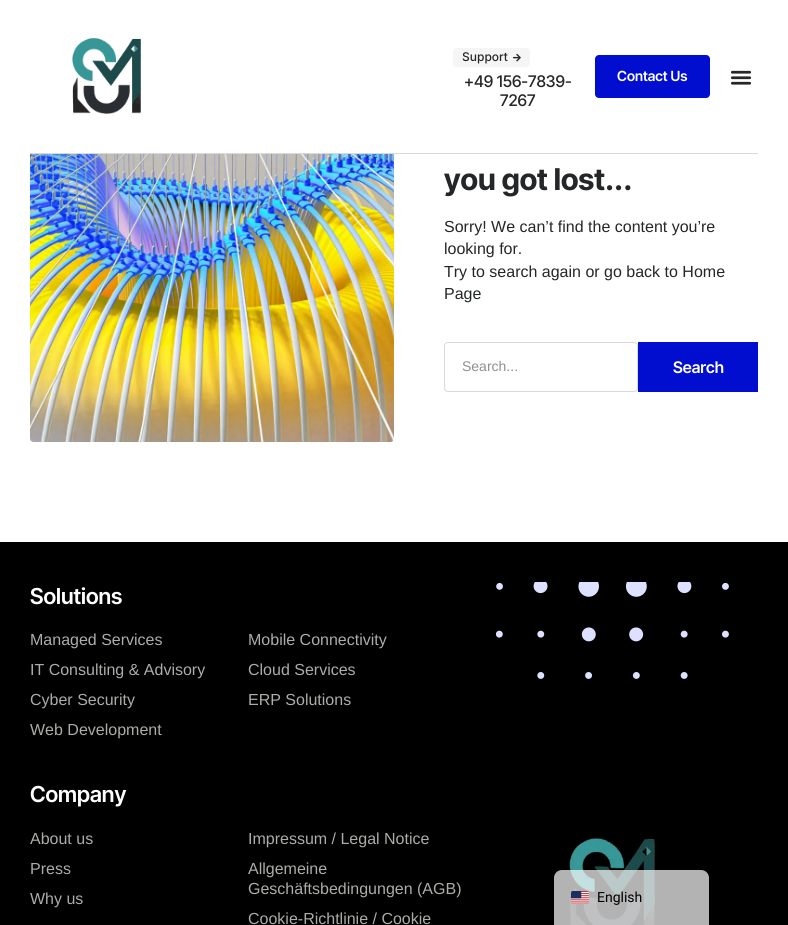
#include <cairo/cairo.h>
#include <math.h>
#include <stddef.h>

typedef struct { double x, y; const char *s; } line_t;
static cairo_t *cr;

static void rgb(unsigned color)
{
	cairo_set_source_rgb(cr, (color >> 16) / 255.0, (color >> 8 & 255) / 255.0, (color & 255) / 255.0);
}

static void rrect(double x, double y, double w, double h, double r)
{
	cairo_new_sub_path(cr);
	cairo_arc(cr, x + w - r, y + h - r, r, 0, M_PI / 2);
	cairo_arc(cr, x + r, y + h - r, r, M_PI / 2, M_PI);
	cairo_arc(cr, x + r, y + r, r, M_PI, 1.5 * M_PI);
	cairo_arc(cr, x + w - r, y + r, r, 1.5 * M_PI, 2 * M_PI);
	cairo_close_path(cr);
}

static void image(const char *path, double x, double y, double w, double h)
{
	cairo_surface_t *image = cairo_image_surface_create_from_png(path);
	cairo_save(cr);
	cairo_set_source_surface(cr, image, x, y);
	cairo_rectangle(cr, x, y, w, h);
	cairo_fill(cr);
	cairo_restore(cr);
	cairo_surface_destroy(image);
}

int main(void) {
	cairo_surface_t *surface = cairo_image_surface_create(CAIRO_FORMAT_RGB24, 788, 925);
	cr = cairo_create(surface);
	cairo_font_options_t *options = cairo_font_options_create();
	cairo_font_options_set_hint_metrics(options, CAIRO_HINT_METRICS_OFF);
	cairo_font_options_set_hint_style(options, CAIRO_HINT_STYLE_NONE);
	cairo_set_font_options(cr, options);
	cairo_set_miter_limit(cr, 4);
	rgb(0xffffff);
	cairo_paint(cr);
	rgb(0xd9d9d9);
	cairo_rectangle(cr, 30, 153, 728, 1);
	cairo_fill(cr);
	image("img/1.png", 72, 38, 69, 76);
	rgb(0xf5f5f5);
	rrect(453, 48, 77, 19, 4);
	cairo_fill(cr);
	image("img/2.png", 513, 53, 8, 9);
	rgb(0x010ed0);
	rrect(595, 55, 115, 43, 4);
	cairo_fill(cr);
	image("img/3.png", 730, 70, 22, 15);
	image("img/4.png", 30, 154, 364, 288);
	rrect(444.5, 342.5, 193, 49, 3.5);
	rgb(0xd9d9d9);
	cairo_set_line_width(cr, 1);
	cairo_stroke(cr);
	rgb(0x010ed0);
	cairo_rectangle(cr, 638, 342, 120, 50);
	cairo_fill(cr);
	rgb(0x000000);
	cairo_rectangle(cr, 0, 542, 788, 383);
	cairo_fill(cr);
	image("img/5.png", 496, 582, 233, 97);
	image("img/6.png", 569, 838, 86, 87);
	cairo_set_source_rgba(cr, 1, 1, 1, 0.7);
	cairo_new_path(cr);
	cairo_move_to(cr, 562, 870);
	cairo_line_to(cr, 701, 870);
	cairo_curve_to(cr, 705.5, 870, 709, 873.5, 709, 878);
	cairo_line_to(cr, 709, 925);
	cairo_line_to(cr, 554, 925);
	cairo_line_to(cr, 554, 878);
	cairo_curve_to(cr, 554, 873.5, 557.5, 870, 562, 870);
	cairo_close_path(cr);
	cairo_fill(cr);
	image("img/7.png", 571, 891, 18, 13);
	cairo_select_font_face(cr, "Inter Medium", CAIRO_FONT_SLANT_NORMAL, CAIRO_FONT_WEIGHT_NORMAL);
	cairo_set_font_size(cr, 12);
	rgb(0x242627);
	cairo_move_to(cr, 462, 61);
	cairo_show_text(cr, "Support");
	cairo_select_font_face(cr, "Inter Tight Medium", CAIRO_FONT_SLANT_NORMAL, CAIRO_FONT_WEIGHT_NORMAL);
	cairo_set_font_size(cr, 16);
	cairo_move_to(cr, 464, 87);
	cairo_show_text(cr, "+49 156-7839-");
	cairo_move_to(cr, 500, 106);
	cairo_show_text(cr, "7267");
	cairo_select_font_face(cr, "Inter Tight SemiBold", CAIRO_FONT_SLANT_NORMAL, CAIRO_FONT_WEIGHT_NORMAL);
	cairo_set_font_size(cr, 14);
	rgb(0xffffff);
	cairo_move_to(cr, 617, 81);
	cairo_show_text(cr, "Contact Us");
	cairo_select_font_face(cr, "Inter Tight", CAIRO_FONT_SLANT_NORMAL, CAIRO_FONT_WEIGHT_BOLD);
	cairo_set_font_size(cr, 30);
	rgb(0x242627);
	cairo_move_to(cr, 444, 190);
	cairo_show_text(cr, "you got lost...");
	cairo_select_font_face(cr, "Liberation Sans", CAIRO_FONT_SLANT_NORMAL, CAIRO_FONT_WEIGHT_NORMAL);
	cairo_set_font_size(cr, 16);
	{
		static const line_t items[] = {
			{444, 232, "Sorry! We can’t find the content you’re"},
			{444, 254, "looking for."},
			{444, 277, "Try to search again or go back to Home"},
			{444, 299, "Page"},
		};
		for (size_t i = 0; i < sizeof items / sizeof *items; i++) {
			cairo_move_to(cr, items[i].x, items[i].y);
			cairo_show_text(cr, items[i].s);
		}
	}
	cairo_set_font_size(cr, 14);
	rgb(0x8c8f93);
	cairo_move_to(cr, 462, 371);
	cairo_show_text(cr, "Search...");
	cairo_select_font_face(cr, "Inter Tight SemiBold", CAIRO_FONT_SLANT_NORMAL, CAIRO_FONT_WEIGHT_NORMAL);
	cairo_set_font_size(cr, 16);
	rgb(0xffffff);
	cairo_move_to(cr, 673, 373);
	cairo_show_text(cr, "Search");
	cairo_set_font_size(cr, 22);
	cairo_move_to(cr, 30, 604);
	cairo_show_text(cr, "Solutions");
	cairo_select_font_face(cr, "Liberation Sans", CAIRO_FONT_SLANT_NORMAL, CAIRO_FONT_WEIGHT_NORMAL);
	cairo_set_font_size(cr, 16);
	rgb(0xacaca9);
	{
		static const line_t items[] = {
			{30, 645, "Managed Services"},
			{30, 675, "IT Consulting & Advisory"},
			{30, 705, "Cyber Security"},
			{30, 735, "Web Development"},
			{248, 645, "Mobile Connectivity"},
			{248, 675, "Cloud Services"},
			{248, 705, "ERP Solutions"},
		};
		for (size_t i = 0; i < sizeof items / sizeof *items; i++) {
			cairo_move_to(cr, items[i].x, items[i].y);
			cairo_show_text(cr, items[i].s);
		}
	}
	cairo_select_font_face(cr, "Inter Tight SemiBold", CAIRO_FONT_SLANT_NORMAL, CAIRO_FONT_WEIGHT_NORMAL);
	cairo_set_font_size(cr, 22);
	rgb(0xffffff);
	cairo_move_to(cr, 30, 802);
	cairo_show_text(cr, "Company");
	cairo_select_font_face(cr, "Liberation Sans", CAIRO_FONT_SLANT_NORMAL, CAIRO_FONT_WEIGHT_NORMAL);
	cairo_set_font_size(cr, 16);
	rgb(0xacaca9);
	{
		static const line_t items[] = {
			{30, 844, "About us"},
			{30, 874, "Press"},
			{30, 904, "Why us"},
			{248, 844, "Impressum / Legal Notice"},
			{248, 874, "Allgemeine"},
			{248, 894, "Geschäftsbedingungen (AGB)"},
			{248, 924, "Cookie-Richtlinie / Cookie"},
		};
		for (size_t i = 0; i < sizeof items / sizeof *items; i++) {
			cairo_move_to(cr, items[i].x, items[i].y);
			cairo_show_text(cr, items[i].s);
		}
	}
	cairo_select_font_face(cr, "Roboto", CAIRO_FONT_SLANT_NORMAL, CAIRO_FONT_WEIGHT_NORMAL);
	cairo_set_font_size(cr, 14);
	rgb(0x000000);
	cairo_move_to(cr, 597, 902);
	cairo_show_text(cr, "English");
	cairo_surface_write_to_png(surface, "page.png");
	cairo_font_options_destroy(options);
	cairo_destroy(cr);
	cairo_surface_destroy(surface);
	return 0;
}
